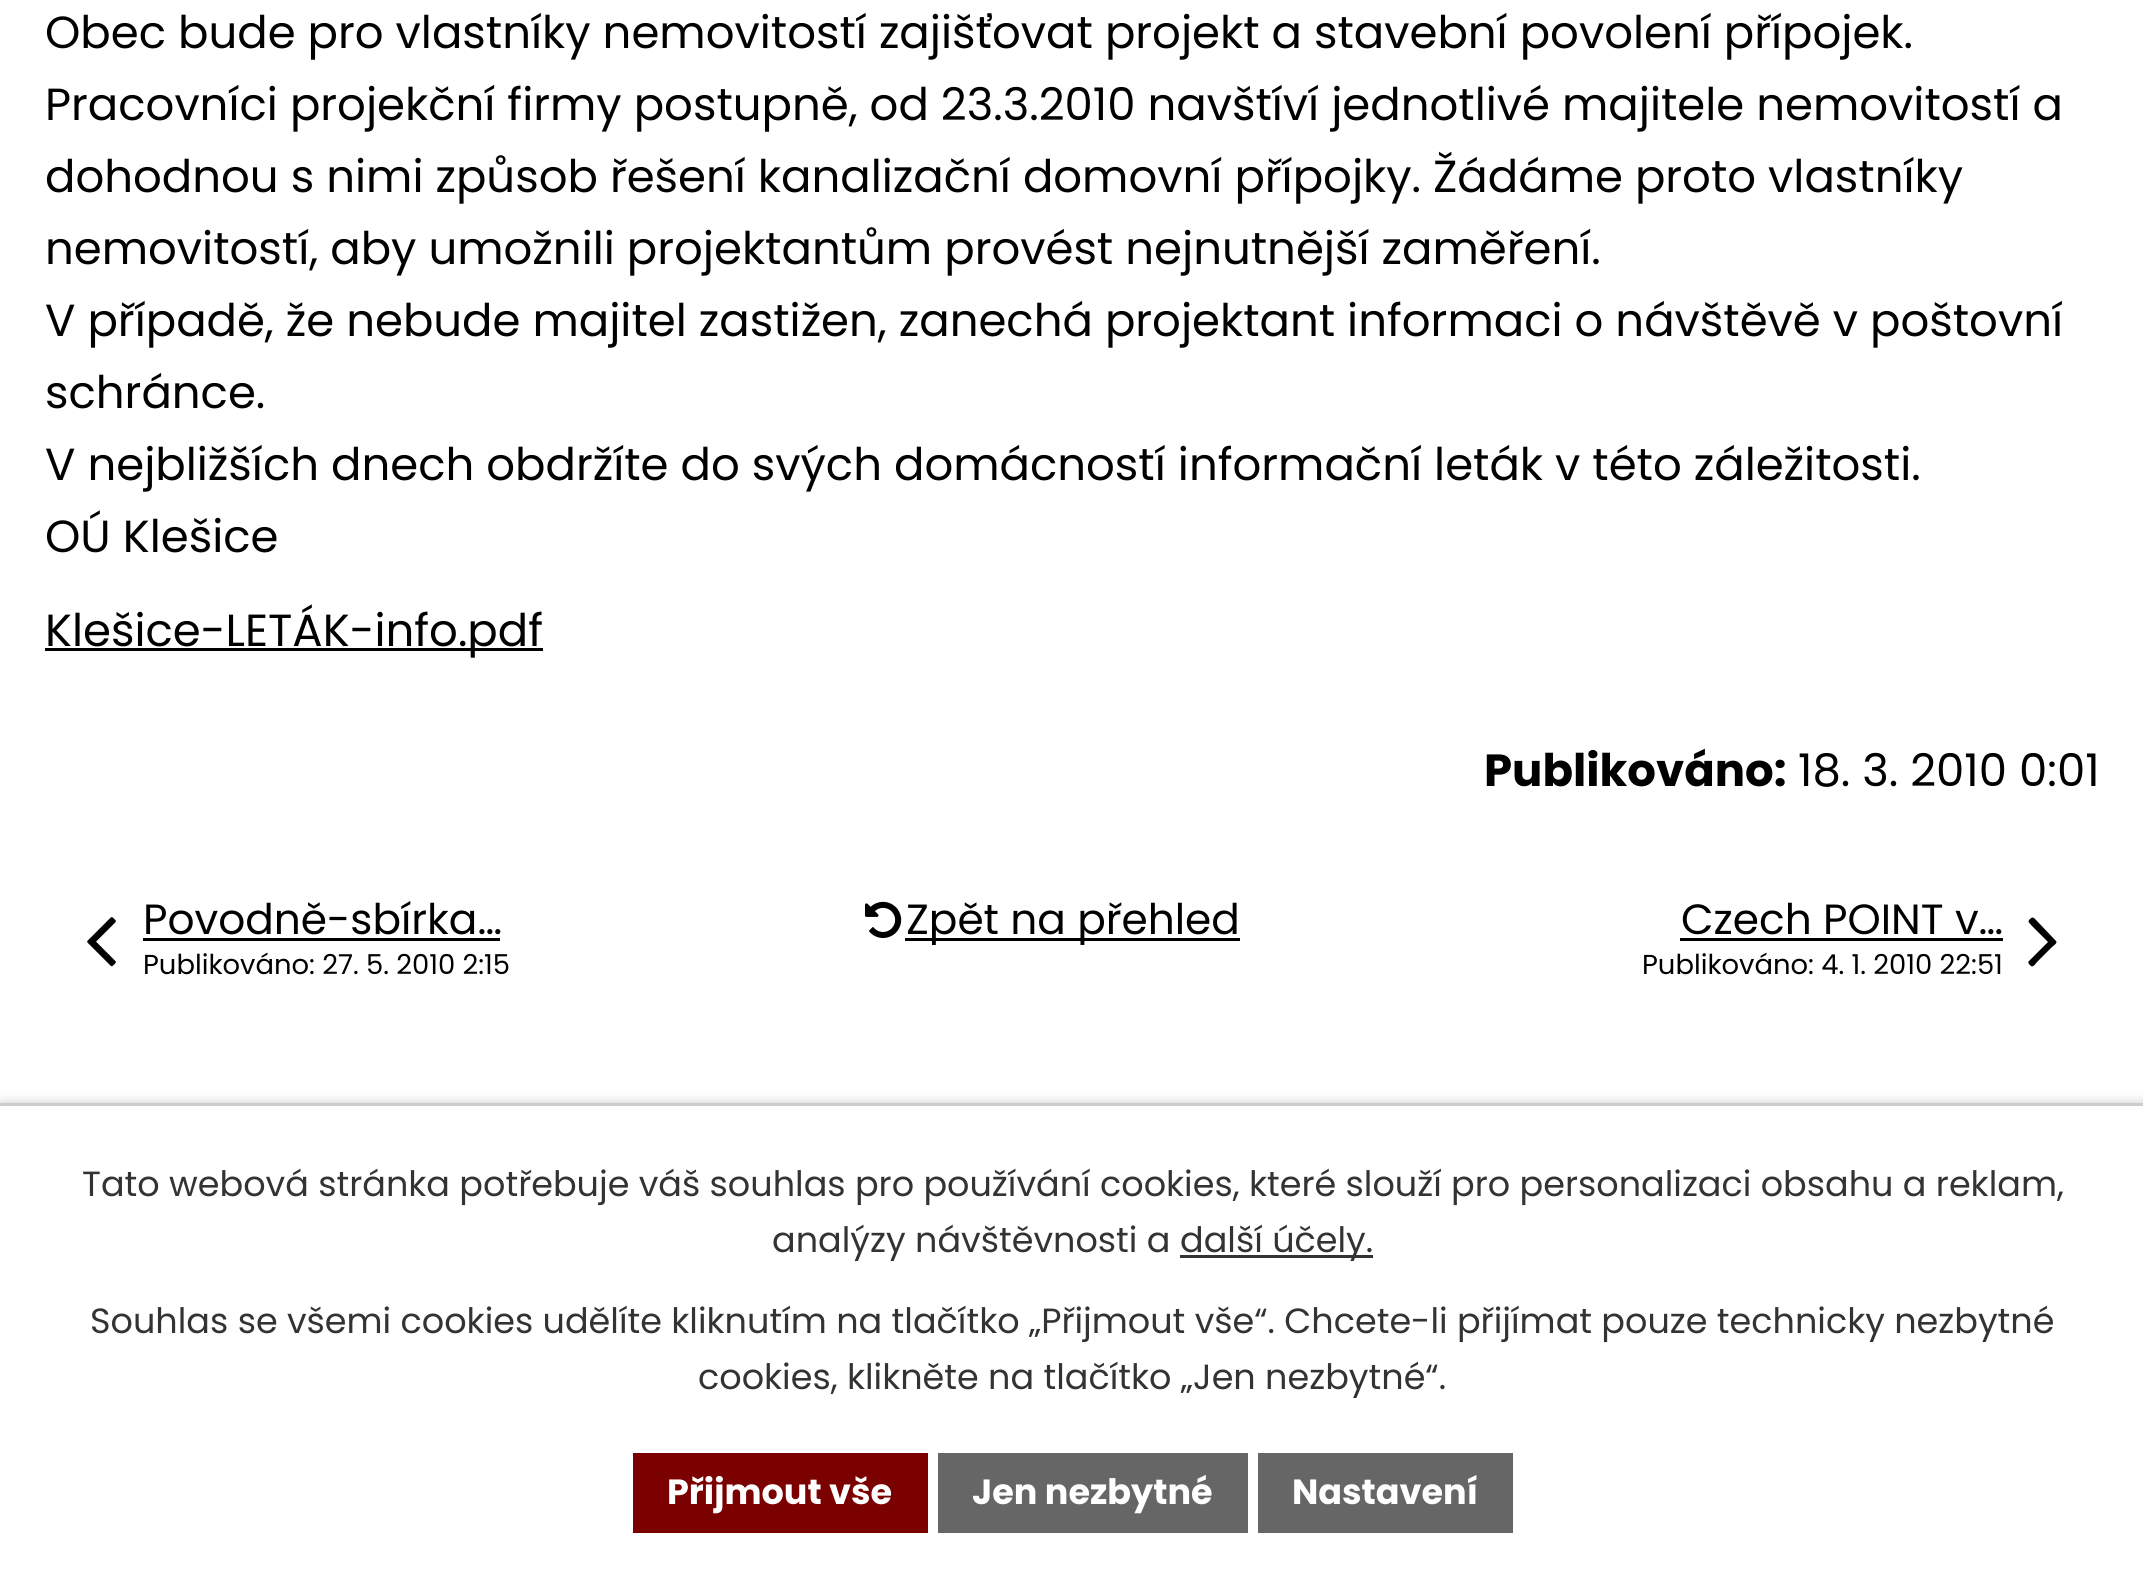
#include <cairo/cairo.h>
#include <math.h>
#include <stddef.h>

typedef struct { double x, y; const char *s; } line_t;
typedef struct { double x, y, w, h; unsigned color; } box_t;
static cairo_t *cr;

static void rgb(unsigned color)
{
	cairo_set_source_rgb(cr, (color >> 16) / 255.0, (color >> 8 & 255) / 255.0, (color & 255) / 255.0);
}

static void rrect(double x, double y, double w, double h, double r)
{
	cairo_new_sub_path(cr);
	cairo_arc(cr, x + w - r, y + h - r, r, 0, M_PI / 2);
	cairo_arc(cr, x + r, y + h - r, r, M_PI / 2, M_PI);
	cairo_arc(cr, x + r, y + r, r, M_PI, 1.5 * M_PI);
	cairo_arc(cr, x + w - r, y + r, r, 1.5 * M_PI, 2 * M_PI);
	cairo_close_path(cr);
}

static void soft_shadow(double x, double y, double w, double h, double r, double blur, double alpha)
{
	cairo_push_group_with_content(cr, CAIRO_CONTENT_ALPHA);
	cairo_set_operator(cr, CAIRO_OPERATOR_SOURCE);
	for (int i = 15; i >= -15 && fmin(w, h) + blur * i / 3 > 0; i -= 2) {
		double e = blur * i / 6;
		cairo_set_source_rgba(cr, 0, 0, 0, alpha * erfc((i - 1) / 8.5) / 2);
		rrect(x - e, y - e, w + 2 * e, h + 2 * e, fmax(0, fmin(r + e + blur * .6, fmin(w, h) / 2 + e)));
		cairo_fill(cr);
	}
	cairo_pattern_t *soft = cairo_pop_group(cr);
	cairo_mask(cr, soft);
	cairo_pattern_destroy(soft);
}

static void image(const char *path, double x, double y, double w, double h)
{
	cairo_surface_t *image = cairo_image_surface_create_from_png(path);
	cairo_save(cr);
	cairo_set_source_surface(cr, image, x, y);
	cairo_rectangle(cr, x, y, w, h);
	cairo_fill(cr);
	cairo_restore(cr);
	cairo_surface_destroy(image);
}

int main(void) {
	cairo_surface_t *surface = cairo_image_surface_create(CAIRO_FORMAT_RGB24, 2143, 1579);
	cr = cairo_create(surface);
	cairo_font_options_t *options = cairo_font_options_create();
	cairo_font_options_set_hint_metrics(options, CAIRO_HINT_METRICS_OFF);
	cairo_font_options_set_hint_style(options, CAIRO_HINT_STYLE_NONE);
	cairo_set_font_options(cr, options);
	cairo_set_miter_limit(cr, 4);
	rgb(0xffffff);
	cairo_paint(cr);
	rgb(0x000000);
	cairo_rectangle(cr, 45, 648, 498, 3);
	cairo_fill(cr);
	image("img/1.png", 87, 917, 29, 50);
	cairo_rectangle(cr, 143, 938, 357, 3);
	cairo_fill(cr);
	image("img/2.png", 865, 901, 37, 37);
	cairo_rectangle(cr, 905, 938, 335, 3);
	cairo_fill(cr);
	cairo_rectangle(cr, 1680, 938, 323, 3);
	cairo_fill(cr);
	cairo_new_path(cr);
	cairo_move_to(cr, 2056, 941);
	cairo_curve_to(cr, 2058, 943, 2053, 946, 2052, 947);
	cairo_line_to(cr, 2037, 962);
	cairo_curve_to(cr, 2037, 962, 2033, 968, 2031, 966);
	cairo_curve_to(cr, 2030, 965, 2027, 963, 2029, 961);
	cairo_line_to(cr, 2048, 942);
	cairo_line_to(cr, 2032, 926);
	cairo_curve_to(cr, 2029, 922, 2027, 922, 2030, 919);
	cairo_curve_to(cr, 2033, 916, 2034, 918, 2037, 921);
	cairo_close_path(cr);
	cairo_fill(cr);
	rgb(0x000000);
	soft_shadow(0, 1103, 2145, 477, 0, 6, 0.2);
	{
		static const box_t items[] = {
			{0, 1106, 2143, 473, 0xffffff},
			{0, 1103, 2143, 3, 0xcccccc},
			{1180, 1255, 193, 3, 0x333333},
			{633, 1453, 295, 80, 0x7b0000},
			{938, 1453, 310, 80, 0x666666},
			{1258, 1453, 255, 80, 0x666666},
		};
		for (size_t i = 0; i < sizeof items / sizeof *items; i++) {
			rgb(items[i].color);
			cairo_rectangle(cr, items[i].x, items[i].y, items[i].w, items[i].h);
			cairo_fill(cr);
		}
	}
	cairo_select_font_face(cr, "Poppins", CAIRO_FONT_SLANT_NORMAL, CAIRO_FONT_WEIGHT_NORMAL);
	cairo_set_font_size(cr, 45);
	rgb(0x000000);
	{
		static const line_t items[] = {
			{45, 48, "Obec bude pro vlastníky nemovitostí zajišťovat projekt a stavební povolení přípojek."},
			{45, 120, "Pracovníci projekční firmy postupně, od 23.3.2010 navštíví jednotlivé majitele nemovitostí a"},
			{45, 192, "dohodnou s nimi způsob řešení kanalizační domovní přípojky. Žádáme proto vlastníky"},
			{45, 264, "nemovitostí, aby umožnili projektantům provést nejnutnější zaměření."},
			{45, 336, "V případě, že nebude majitel zastižen, zanechá projektant informaci o návštěvě v poštovní"},
			{45, 408, "schránce."},
			{45, 480, "V nejbližších dnech obdržíte do svých domácností informační leták v této záležitosti."},
			{45, 552, "OÚ Klešice"},
			{45, 646, "Klešice-LETÁK-info.pdf"},
		};
		for (size_t i = 0; i < sizeof items / sizeof *items; i++) {
			cairo_move_to(cr, items[i].x, items[i].y);
			cairo_show_text(cr, items[i].s);
		}
	}
	cairo_select_font_face(cr, "Poppins", CAIRO_FONT_SLANT_NORMAL, CAIRO_FONT_WEIGHT_BOLD);
	cairo_move_to(cr, 1484, 786);
	cairo_show_text(cr, "Publikováno:");
	cairo_select_font_face(cr, "Poppins", CAIRO_FONT_SLANT_NORMAL, CAIRO_FONT_WEIGHT_NORMAL);
	cairo_move_to(cr, 1798, 786);
	cairo_show_text(cr, "18. 3. 2010 0:01");
	cairo_set_font_size(cr, 42.25);
	cairo_move_to(cr, 143, 934);
	cairo_show_text(cr, "Povodně-sbírka…");
	cairo_set_font_size(cr, 27.4);
	cairo_move_to(cr, 143, 974);
	cairo_show_text(cr, "Publikováno: 27. 5. 2010 2:15");
	cairo_set_font_size(cr, 42.25);
	cairo_move_to(cr, 906, 934);
	cairo_show_text(cr, "Zpět na přehled");
	cairo_move_to(cr, 1681, 934);
	cairo_show_text(cr, "Czech POINT v…");
	cairo_set_font_size(cr, 27.4);
	cairo_move_to(cr, 1642, 974);
	cairo_show_text(cr, "Publikováno: 4. 1. 2010 22:51");
	cairo_set_font_size(cr, 35);
	rgb(0x333333);
	{
		static const line_t items[] = {
			{82, 1196, "Tato webová stránka potřebuje váš souhlas pro používání cookies, které slouží pro personalizaci obsahu a reklam,"},
			{772, 1252, "analýzy návštěvnosti a"},
			{1180, 1252, "další účely."},
			{90, 1333, "Souhlas se všemi cookies udělíte kliknutím na tlačítko „Přijmout vše“. Chcete-li přijímat pouze technicky nezbytné"},
			{698, 1389, "cookies, klikněte na tlačítko „Jen nezbytné“."},
		};
		for (size_t i = 0; i < sizeof items / sizeof *items; i++) {
			cairo_move_to(cr, items[i].x, items[i].y);
			cairo_show_text(cr, items[i].s);
		}
	}
	cairo_select_font_face(cr, "Poppins", CAIRO_FONT_SLANT_NORMAL, CAIRO_FONT_WEIGHT_BOLD);
	rgb(0xffffff);
	{
		static const line_t items[] = {
			{667, 1504, "Přijmout vše"},
			{972, 1504, "Jen nezbytné"},
			{1292, 1504, "Nastavení"},
		};
		for (size_t i = 0; i < sizeof items / sizeof *items; i++) {
			cairo_move_to(cr, items[i].x, items[i].y);
			cairo_show_text(cr, items[i].s);
		}
	}
	cairo_surface_write_to_png(surface, "page.png");
	cairo_font_options_destroy(options);
	cairo_destroy(cr);
	cairo_surface_destroy(surface);
	return 0;
}
